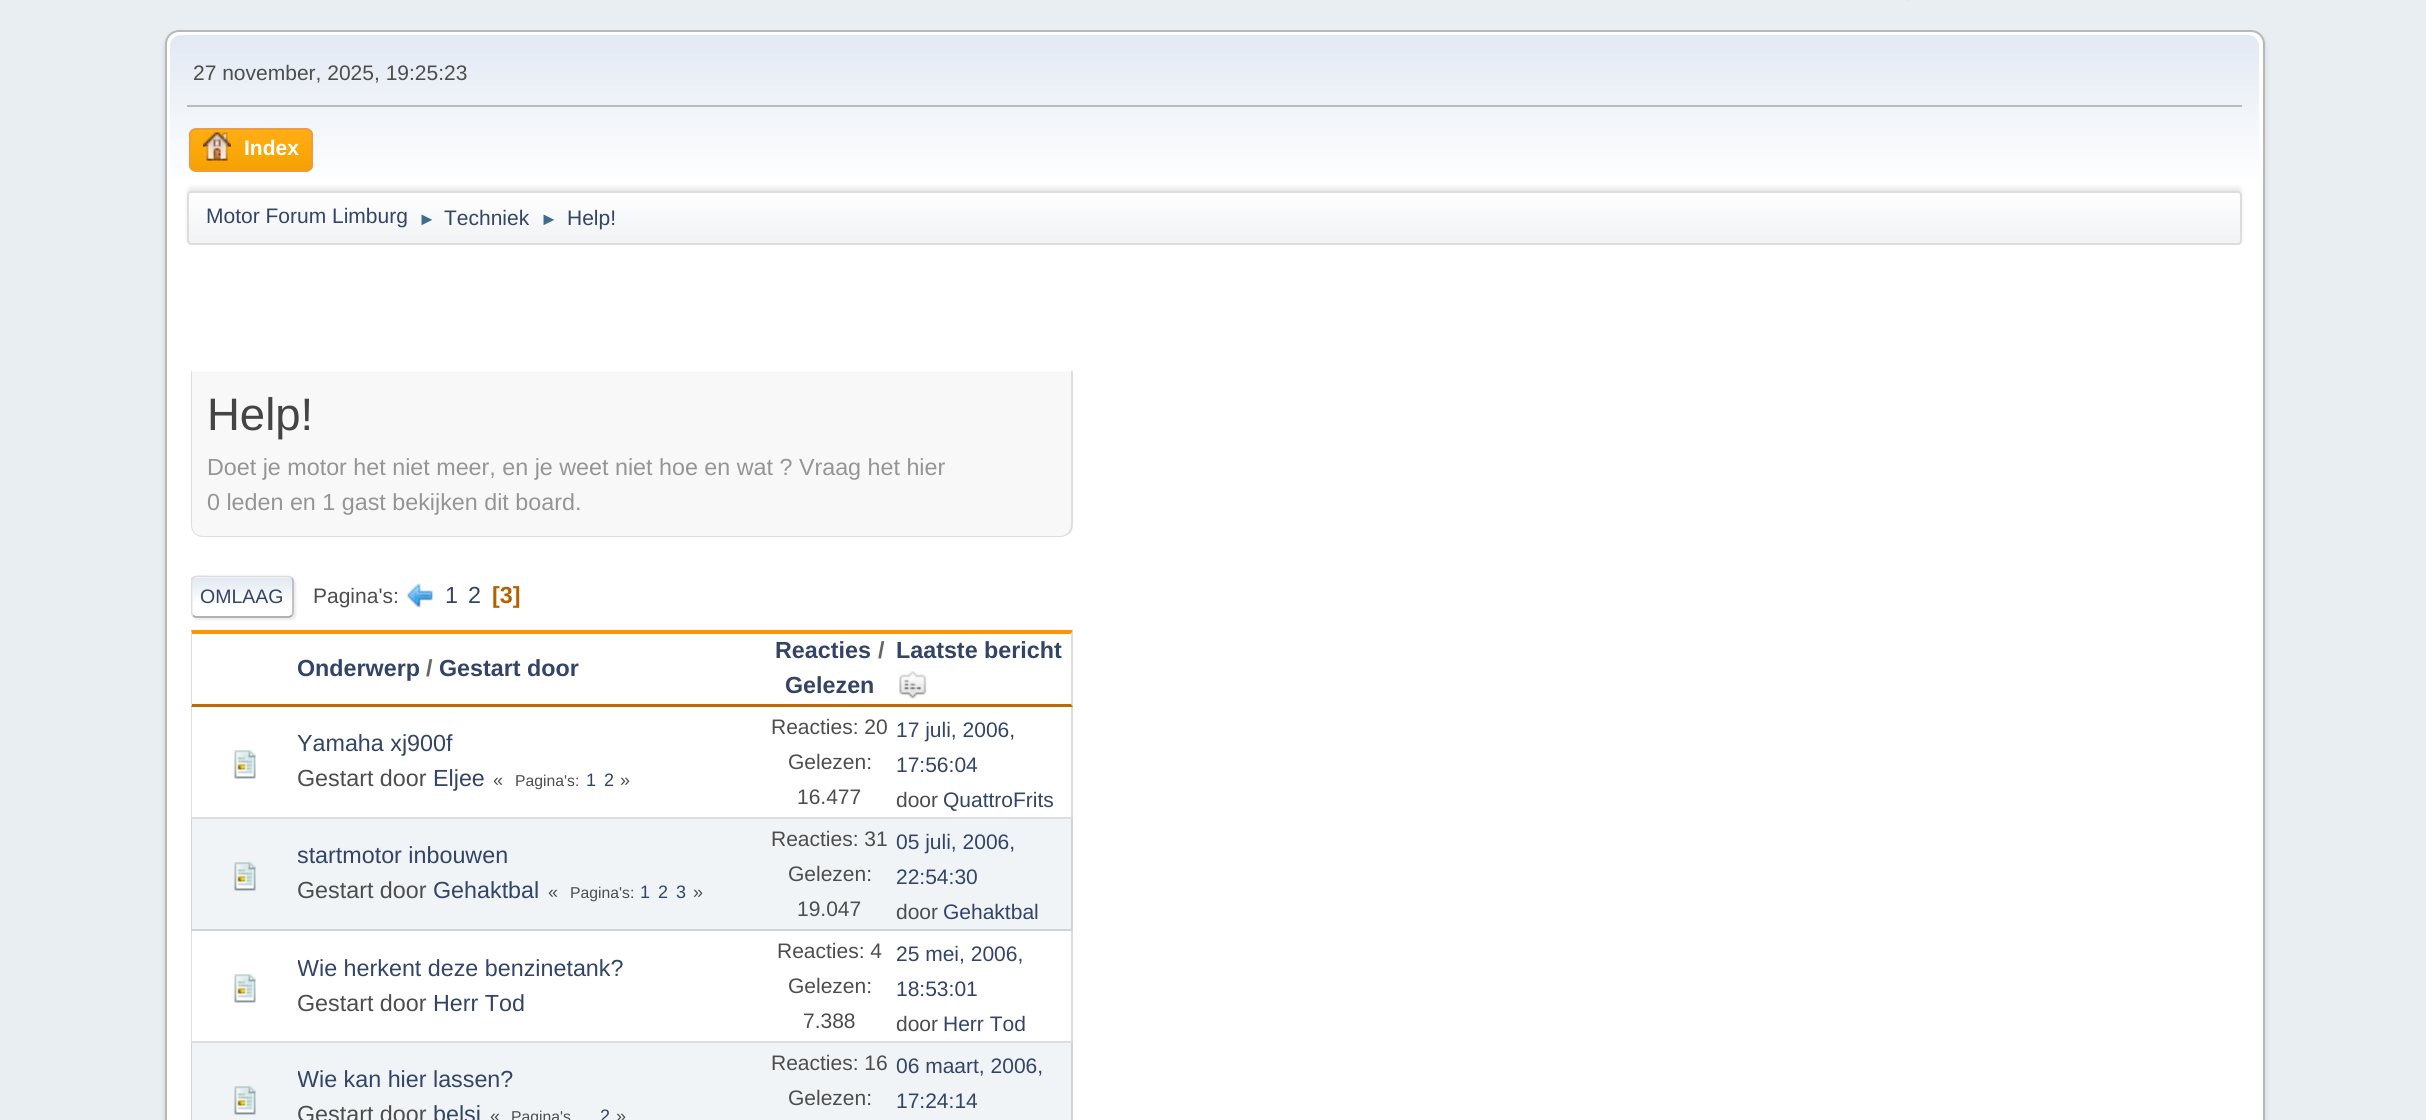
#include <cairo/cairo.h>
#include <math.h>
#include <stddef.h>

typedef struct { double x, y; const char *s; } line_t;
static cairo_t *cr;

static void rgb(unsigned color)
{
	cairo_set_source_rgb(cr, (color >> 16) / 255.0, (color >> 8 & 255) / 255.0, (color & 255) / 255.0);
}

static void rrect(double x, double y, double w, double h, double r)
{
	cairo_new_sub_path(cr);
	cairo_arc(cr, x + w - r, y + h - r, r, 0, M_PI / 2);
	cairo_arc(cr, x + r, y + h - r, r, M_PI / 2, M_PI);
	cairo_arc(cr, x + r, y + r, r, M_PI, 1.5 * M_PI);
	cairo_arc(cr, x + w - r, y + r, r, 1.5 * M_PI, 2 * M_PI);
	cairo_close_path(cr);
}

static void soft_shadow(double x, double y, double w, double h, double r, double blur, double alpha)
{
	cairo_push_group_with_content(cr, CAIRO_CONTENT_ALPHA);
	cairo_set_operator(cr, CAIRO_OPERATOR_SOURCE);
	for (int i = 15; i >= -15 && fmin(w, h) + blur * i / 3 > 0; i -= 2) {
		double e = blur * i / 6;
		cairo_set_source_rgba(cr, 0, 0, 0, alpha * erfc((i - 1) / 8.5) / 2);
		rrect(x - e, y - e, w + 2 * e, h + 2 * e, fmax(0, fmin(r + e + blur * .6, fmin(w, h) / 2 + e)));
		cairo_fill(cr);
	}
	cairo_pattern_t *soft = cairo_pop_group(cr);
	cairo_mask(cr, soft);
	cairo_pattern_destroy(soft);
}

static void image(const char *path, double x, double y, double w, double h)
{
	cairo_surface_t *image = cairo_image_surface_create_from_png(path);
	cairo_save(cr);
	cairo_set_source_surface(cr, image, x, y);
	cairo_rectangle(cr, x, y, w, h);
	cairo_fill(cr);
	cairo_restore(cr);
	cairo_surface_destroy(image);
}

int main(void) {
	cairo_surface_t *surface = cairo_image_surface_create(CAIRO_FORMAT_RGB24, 2426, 1120);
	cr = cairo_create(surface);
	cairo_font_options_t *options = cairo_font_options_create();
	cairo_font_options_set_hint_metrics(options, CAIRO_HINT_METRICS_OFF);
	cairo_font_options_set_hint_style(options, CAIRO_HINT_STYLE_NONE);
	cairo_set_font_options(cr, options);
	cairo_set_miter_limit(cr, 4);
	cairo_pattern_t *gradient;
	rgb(0xe9eef2);
	cairo_paint(cr);
	image("img/1.png", 1906, 0, 4, 1);
	rgb(0x000000);
	soft_shadow(165, 33, 2100, 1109, 14, 2.5, 0.14);
	rgb(0xffffff);
	rrect(166, 31, 2098, 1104, 13);
	cairo_fill_preserve(cr);
	rgb(0xb8b8b8);
	cairo_stroke(cr);
	gradient = cairo_pattern_create_linear(1215, 35, 1215, 249);
	cairo_pattern_add_color_stop_rgba(gradient, 0, 0.886, 0.914, 0.953, 1);
	cairo_pattern_add_color_stop_rgba(gradient, 0.7, 1, 1, 1, 1);
	cairo_set_source(cr, gradient);
	cairo_pattern_destroy(gradient);
	cairo_new_path(cr);
	cairo_move_to(cr, 181, 35);
	cairo_line_to(cr, 2248, 35);
	cairo_curve_to(cr, 2254, 35, 2259, 40, 2259, 46);
	cairo_line_to(cr, 2259, 249);
	cairo_line_to(cr, 170, 249);
	cairo_line_to(cr, 170, 46);
	cairo_curve_to(cr, 170, 40, 175, 35, 181, 35);
	cairo_close_path(cr);
	cairo_fill(cr);
	rgb(0xbbbbbb);
	cairo_rectangle(cr, 187, 105, 2055, 2);
	cairo_fill(cr);
	cairo_save(cr);
	rrect(189, 128, 124, 44, 7);
	cairo_clip(cr);
	gradient = cairo_pattern_create_linear(251, 130, 251, 170);
	cairo_pattern_add_color_stop_rgba(gradient, 0, 1, 0.682, 0.078, 1);
	cairo_pattern_add_color_stop_rgba(gradient, 1, 0.961, 0.631, 0, 1);
	cairo_set_source(cr, gradient);
	cairo_pattern_destroy(gradient);
	cairo_rectangle(cr, 189, 130, 124, 40);
	cairo_fill(cr);
	cairo_restore(cr);
	rrect(190, 129, 122, 42, 6);
	rgb(0xf49a3a);
	cairo_stroke(cr);
	image("img/2.png", 203, 132, 28, 29);
	rgb(0x000000);
	soft_shadow(187, 187, 2055, 55, 4, 2, 0.08);
	cairo_save(cr);
	rrect(187, 191, 2055, 54, 4);
	cairo_clip(cr);
	gradient = cairo_pattern_create_linear(1215, 192, 1215, 243);
	cairo_pattern_add_color_stop_rgba(gradient, 0, 1, 1, 1, 1);
	cairo_pattern_add_color_stop_rgba(gradient, 0.95, 0.945, 0.953, 0.961, 1);
	cairo_set_source(cr, gradient);
	cairo_pattern_destroy(gradient);
	cairo_rectangle(cr, 187, 193, 2055, 50);
	cairo_fill(cr);
	cairo_restore(cr);
	rrect(188, 192, 2053, 52, 3);
	rgb(0xdddddd);
	cairo_stroke(cr);
	rgb(0xf8f8f8);
	cairo_new_path(cr);
	cairo_move_to(cr, 191, 371);
	cairo_line_to(cr, 1073, 371);
	cairo_line_to(cr, 1073, 525);
	cairo_curve_to(cr, 1073, 531.5, 1067.5, 537, 1061, 537);
	cairo_line_to(cr, 203, 537);
	cairo_curve_to(cr, 196.5, 537, 191, 531.5, 191, 525);
	cairo_close_path(cr);
	cairo_fill(cr);
	rgb(0xdddddd);
	cairo_set_fill_rule(cr, CAIRO_FILL_RULE_EVEN_ODD);
	cairo_new_path(cr);
	cairo_move_to(cr, 191, 371);
	cairo_line_to(cr, 1073, 371);
	cairo_line_to(cr, 1073, 525);
	cairo_curve_to(cr, 1073, 532, 1067, 537, 1060, 537);
	cairo_line_to(cr, 203, 537);
	cairo_curve_to(cr, 196, 537, 191, 532, 191, 525);
	cairo_close_path(cr);
	cairo_move_to(cr, 192, 371);
	cairo_line_to(cr, 1071, 371);
	cairo_line_to(cr, 1071, 525);
	cairo_curve_to(cr, 1071, 531, 1066, 536, 1060, 536);
	cairo_line_to(cr, 203, 536);
	cairo_curve_to(cr, 197, 536, 192, 531, 192, 525);
	cairo_close_path(cr);
	cairo_fill(cr);
	rgb(0xdddddd);
	soft_shadow(193, 578, 103, 42, 5, 1, 0.57);
	rgb(0xffffff);
	rrect(191, 576, 103, 42, 5);
	cairo_fill(cr);
	cairo_save(cr);
	cairo_set_fill_rule(cr, CAIRO_FILL_RULE_WINDING);
	rrect(191, 576, 103, 42, 5);
	cairo_clip(cr);
	gradient = cairo_pattern_create_linear(242, 578, 242, 616);
	cairo_pattern_add_color_stop_rgba(gradient, 0, 0.886, 0.914, 0.953, 1);
	cairo_pattern_add_color_stop_rgba(gradient, 0.7, 1, 1, 1, 1);
	cairo_set_source(cr, gradient);
	cairo_pattern_destroy(gradient);
	cairo_rectangle(cr, 191, 578, 103, 38);
	cairo_fill(cr);
	gradient = cairo_pattern_create_linear(242, 616, 242, 655);
	cairo_pattern_add_color_stop_rgba(gradient, 0, 0.886, 0.914, 0.953, 1);
	cairo_pattern_add_color_stop_rgba(gradient, 0.7, 1, 1, 1, 1);
	cairo_set_source(cr, gradient);
	cairo_pattern_destroy(gradient);
	cairo_rectangle(cr, 191, 616, 103, 2);
	cairo_fill(cr);
	cairo_restore(cr);
	cairo_new_path(cr);
	cairo_move_to(cr, 292, 578);
	cairo_curve_to(cr, 292.5, 578.5, 293, 580, 293, 581);
	cairo_line_to(cr, 293, 612.5);
	cairo_curve_to(cr, 293, 613.5, 292.5, 615, 292, 615.5);
	rgb(0xbbbbbb);
	cairo_set_line_width(cr, 1.8);
	cairo_stroke(cr);
	cairo_new_path(cr);
	cairo_move_to(cr, 292, 615.5);
	cairo_line_to(cr, 289, 617);
	cairo_line_to(cr, 195.5, 617);
	cairo_line_to(cr, 193, 615.5);
	rgb(0xaaaaaa);
	cairo_stroke(cr);
	cairo_save(cr);
	cairo_set_fill_rule(cr, CAIRO_FILL_RULE_WINDING);
	cairo_rectangle(cr, 191, 564, 882, 66);
	cairo_clip(cr);
	cairo_new_path(cr);
	cairo_move_to(cr, 193, 615.5);
	cairo_curve_to(cr, 191, 613.5, 191.5, 609.5, 191.5, 607);
	cairo_line_to(cr, 191.5, 597);
	cairo_curve_to(cr, 191.5, 573.5, 188, 576.5, 211.5, 576.5);
	cairo_line_to(cr, 289, 576.5);
	cairo_line_to(cr, 292, 578);
	rgb(0xdddddd);
	cairo_stroke(cr);
	cairo_restore(cr);
	image("img/3.png", 407, 583, 26, 25);
	rgb(0xff9400);
	cairo_set_fill_rule(cr, CAIRO_FILL_RULE_WINDING);
	cairo_new_path(cr);
	cairo_move_to(cr, 191, 630);
	cairo_line_to(cr, 1073, 630);
	cairo_line_to(cr, 1071, 634);
	cairo_line_to(cr, 192, 634);
	cairo_close_path(cr);
	cairo_fill(cr);
	rgb(0xdddddd);
	cairo_new_path(cr);
	cairo_move_to(cr, 1073, 630);
	cairo_line_to(cr, 1073, 707);
	cairo_line_to(cr, 1071, 704);
	cairo_line_to(cr, 1071, 634);
	cairo_close_path(cr);
	cairo_fill(cr);
	rgb(0xbf6900);
	cairo_new_path(cr);
	cairo_move_to(cr, 1073, 707);
	cairo_line_to(cr, 191, 707);
	cairo_line_to(cr, 192, 704);
	cairo_line_to(cr, 1071, 704);
	cairo_close_path(cr);
	cairo_fill(cr);
	rgb(0xdddddd);
	cairo_new_path(cr);
	cairo_move_to(cr, 191, 707);
	cairo_line_to(cr, 191, 630);
	cairo_line_to(cr, 192, 634);
	cairo_line_to(cr, 192, 704);
	cairo_close_path(cr);
	cairo_fill(cr);
	image("img/4.png", 899, 671, 28, 28);
	rgb(0xdcdcdc);
	cairo_new_path(cr);
	cairo_move_to(cr, 1073, 707);
	cairo_line_to(cr, 1073, 819);
	cairo_line_to(cr, 1071, 817);
	cairo_line_to(cr, 1071, 707);
	cairo_close_path(cr);
	cairo_fill(cr);
	cairo_set_source_rgba(cr, 0, 0, 0, 0.13);
	cairo_new_path(cr);
	cairo_move_to(cr, 1073, 819);
	cairo_line_to(cr, 191, 819);
	cairo_line_to(cr, 192, 817);
	cairo_line_to(cr, 1071, 817);
	cairo_close_path(cr);
	cairo_fill(cr);
	cairo_new_path(cr);
	cairo_move_to(cr, 191, 819);
	cairo_line_to(cr, 191, 707);
	cairo_line_to(cr, 192, 707);
	cairo_line_to(cr, 192, 817);
	cairo_close_path(cr);
	cairo_fill(cr);
	image("img/5.png", 234, 750, 22, 29);
	rgb(0xf0f4f7);
	cairo_rectangle(cr, 191, 819, 882, 112);
	cairo_fill(cr);
	rgb(0xd1d4d7);
	cairo_new_path(cr);
	cairo_move_to(cr, 1073, 819);
	cairo_line_to(cr, 1073, 931);
	cairo_line_to(cr, 1071, 929);
	cairo_line_to(cr, 1071, 819);
	cairo_close_path(cr);
	cairo_fill(cr);
	cairo_set_source_rgba(cr, 0, 0, 0, 0.13);
	cairo_new_path(cr);
	cairo_move_to(cr, 1073, 931);
	cairo_line_to(cr, 191, 931);
	cairo_line_to(cr, 192, 929);
	cairo_line_to(cr, 1071, 929);
	cairo_close_path(cr);
	cairo_fill(cr);
	cairo_new_path(cr);
	cairo_move_to(cr, 191, 931);
	cairo_line_to(cr, 191, 819);
	cairo_line_to(cr, 192, 819);
	cairo_line_to(cr, 192, 929);
	cairo_close_path(cr);
	cairo_fill(cr);
	image("img/6.png", 234, 862, 22, 29);
	rgb(0xdcdcdc);
	cairo_new_path(cr);
	cairo_move_to(cr, 1073, 931);
	cairo_line_to(cr, 1073, 1043);
	cairo_line_to(cr, 1071, 1041);
	cairo_line_to(cr, 1071, 931);
	cairo_close_path(cr);
	cairo_fill(cr);
	cairo_set_source_rgba(cr, 0, 0, 0, 0.13);
	cairo_new_path(cr);
	cairo_move_to(cr, 1073, 1043);
	cairo_line_to(cr, 191, 1043);
	cairo_line_to(cr, 192, 1041);
	cairo_line_to(cr, 1071, 1041);
	cairo_close_path(cr);
	cairo_fill(cr);
	cairo_new_path(cr);
	cairo_move_to(cr, 191, 1043);
	cairo_line_to(cr, 191, 931);
	cairo_line_to(cr, 192, 931);
	cairo_line_to(cr, 192, 1041);
	cairo_close_path(cr);
	cairo_fill(cr);
	image("img/5.png", 234, 974, 22, 29);
	rgb(0xf0f4f7);
	cairo_rectangle(cr, 192, 1043, 879, 77);
	cairo_fill(cr);
	rgb(0xd1d4d7);
	cairo_new_path(cr);
	cairo_move_to(cr, 1073, 1043);
	cairo_line_to(cr, 1073, 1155);
	cairo_line_to(cr, 1071, 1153);
	cairo_line_to(cr, 1071, 1043);
	cairo_close_path(cr);
	cairo_fill(cr);
	cairo_new_path(cr);
	cairo_move_to(cr, 191, 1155);
	cairo_line_to(cr, 191, 1043);
	cairo_line_to(cr, 192, 1043);
	cairo_line_to(cr, 192, 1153);
	cairo_close_path(cr);
	cairo_fill(cr);
	image("img/6.png", 234, 1086, 22, 29);
	cairo_select_font_face(cr, "Liberation Sans", CAIRO_FONT_SLANT_NORMAL, CAIRO_FONT_WEIGHT_NORMAL);
	cairo_set_font_size(cr, 21);
	rgb(0x4d4d4d);
	cairo_move_to(cr, 193, 80);
	cairo_show_text(cr, "27 november, 2025, 19:25:23");
	cairo_select_font_face(cr, "Liberation Sans", CAIRO_FONT_SLANT_NORMAL, CAIRO_FONT_WEIGHT_BOLD);
	rgb(0xffffff);
	cairo_move_to(cr, 244, 155);
	cairo_show_text(cr, "Index");
	cairo_select_font_face(cr, "Liberation Sans", CAIRO_FONT_SLANT_NORMAL, CAIRO_FONT_WEIGHT_NORMAL);
	rgb(0x334466);
	cairo_move_to(cr, 206, 223);
	cairo_show_text(cr, "Motor Forum Limburg");
	cairo_set_font_size(cr, 18);
	rgb(0x3f6b8c);
	cairo_move_to(cr, 418, 225);
	cairo_show_text(cr, "►");
	cairo_set_font_size(cr, 21);
	rgb(0x334466);
	cairo_move_to(cr, 444, 225);
	cairo_show_text(cr, "Techniek");
	cairo_set_font_size(cr, 18);
	rgb(0x3f6b8c);
	cairo_move_to(cr, 540, 225);
	cairo_show_text(cr, "►");
	cairo_set_font_size(cr, 21);
	rgb(0x334466);
	cairo_move_to(cr, 567, 225);
	cairo_show_text(cr, "Help!");
	cairo_set_font_size(cr, 45.5);
	rgb(0x444444);
	cairo_move_to(cr, 207, 430);
	cairo_show_text(cr, "Help!");
	cairo_set_font_size(cr, 23.3);
	rgb(0x959595);
	cairo_move_to(cr, 207, 475);
	cairo_show_text(cr, "Doet je motor het niet meer, en je weet niet hoe en wat ? Vraag het hier");
	cairo_move_to(cr, 207, 510);
	cairo_show_text(cr, "0 leden en 1 gast bekijken dit board.");
	cairo_set_font_size(cr, 19.5);
	rgb(0x334466);
	cairo_move_to(cr, 200, 603);
	cairo_show_text(cr, "OMLAAG");
	cairo_set_font_size(cr, 21);
	rgb(0x4d4d4d);
	cairo_move_to(cr, 313, 603);
	cairo_show_text(cr, "Pagina's:");
	cairo_set_font_size(cr, 23.3);
	rgb(0x334466);
	cairo_move_to(cr, 445, 603);
	cairo_show_text(cr, "1");
	cairo_move_to(cr, 468, 603);
	cairo_show_text(cr, "2");
	cairo_select_font_face(cr, "Liberation Sans", CAIRO_FONT_SLANT_NORMAL, CAIRO_FONT_WEIGHT_BOLD);
	rgb(0xb46100);
	cairo_move_to(cr, 492, 603);
	cairo_show_text(cr, "[3]");
	rgb(0x334466);
	cairo_move_to(cr, 775, 658);
	cairo_show_text(cr, "Reacties");
	rgb(0x666666);
	cairo_move_to(cr, 878, 658);
	cairo_show_text(cr, "/");
	rgb(0x334466);
	cairo_move_to(cr, 785, 693);
	cairo_show_text(cr, "Gelezen");
	cairo_move_to(cr, 896, 658);
	cairo_show_text(cr, "Laatste bericht");
	cairo_save(cr);
	cairo_rectangle(cr, 298, 651, 465, 35);
	cairo_clip(cr);
	cairo_move_to(cr, 297, 676);
	cairo_show_text(cr, "Onderwerp");
	cairo_restore(cr);
	rgb(0x666666);
	cairo_move_to(cr, 426, 676);
	cairo_show_text(cr, "/");
	rgb(0x334466);
	cairo_move_to(cr, 439, 676);
	cairo_show_text(cr, "Gestart door");
	cairo_select_font_face(cr, "Liberation Sans", CAIRO_FONT_SLANT_NORMAL, CAIRO_FONT_WEIGHT_NORMAL);
	cairo_move_to(cr, 297, 751);
	cairo_show_text(cr, "Yamaha xj900f");
	cairo_save(cr);
	cairo_rectangle(cr, 298, 718, 465, 89);
	cairo_clip(cr);
	rgb(0x4d4d4d);
	cairo_move_to(cr, 297, 786);
	cairo_show_text(cr, "Gestart door");
	cairo_restore(cr);
	cairo_move_to(cr, 433, 786);
	cairo_show_text(cr, "Eljee");
	cairo_set_font_size(cr, 18);
	rgb(0x4d4d4d);
	cairo_move_to(cr, 493, 786);
	cairo_show_text(cr, "«");
	cairo_set_font_size(cr, 15.75);
	cairo_move_to(cr, 515, 786);
	cairo_show_text(cr, "Pagina's:");
	cairo_set_font_size(cr, 18);
	rgb(0x334466);
	cairo_move_to(cr, 586, 786);
	cairo_show_text(cr, "1");
	cairo_move_to(cr, 604, 786);
	cairo_show_text(cr, "2");
	rgb(0x4d4d4d);
	cairo_move_to(cr, 620, 786);
	cairo_show_text(cr, "»");
	cairo_set_font_size(cr, 21);
	{
		static const line_t items[] = {
			{771, 734, "Reacties: 20"},
			{788, 769, "Gelezen:"},
			{797, 804, "16.477"},
		};
		for (size_t i = 0; i < sizeof items / sizeof *items; i++) {
			cairo_move_to(cr, items[i].x, items[i].y);
			cairo_show_text(cr, items[i].s);
		}
	}
	rgb(0x334466);
	cairo_move_to(cr, 896, 737);
	cairo_show_text(cr, "17 juli, 2006,");
	cairo_move_to(cr, 896, 772);
	cairo_show_text(cr, "17:56:04");
	rgb(0x4d4d4d);
	cairo_move_to(cr, 896, 807);
	cairo_show_text(cr, "door");
	rgb(0x334466);
	cairo_move_to(cr, 943, 807);
	cairo_show_text(cr, "QuattroFrits");
	cairo_save(cr);
	cairo_rectangle(cr, 298, 830, 465, 89);
	cairo_clip(cr);
	cairo_set_font_size(cr, 23.3);
	cairo_move_to(cr, 297, 863);
	cairo_show_text(cr, "startmotor inbouwen");
	rgb(0x4d4d4d);
	cairo_move_to(cr, 297, 898);
	cairo_show_text(cr, "Gestart door");
	cairo_restore(cr);
	cairo_set_font_size(cr, 23.3);
	cairo_move_to(cr, 433, 898);
	cairo_show_text(cr, "Gehaktbal");
	cairo_set_font_size(cr, 18);
	rgb(0x4d4d4d);
	cairo_move_to(cr, 548, 898);
	cairo_show_text(cr, "«");
	cairo_set_font_size(cr, 15.75);
	cairo_move_to(cr, 570, 898);
	cairo_show_text(cr, "Pagina's:");
	cairo_set_font_size(cr, 18);
	rgb(0x334466);
	{
		static const line_t items[] = {
			{640, 898, "1"},
			{658, 898, "2"},
			{676, 898, "3"},
		};
		for (size_t i = 0; i < sizeof items / sizeof *items; i++) {
			cairo_move_to(cr, items[i].x, items[i].y);
			cairo_show_text(cr, items[i].s);
		}
	}
	rgb(0x4d4d4d);
	cairo_move_to(cr, 693, 898);
	cairo_show_text(cr, "»");
	cairo_set_font_size(cr, 21);
	{
		static const line_t items[] = {
			{771, 846, "Reacties: 31"},
			{788, 881, "Gelezen:"},
			{797, 916, "19.047"},
		};
		for (size_t i = 0; i < sizeof items / sizeof *items; i++) {
			cairo_move_to(cr, items[i].x, items[i].y);
			cairo_show_text(cr, items[i].s);
		}
	}
	rgb(0x334466);
	cairo_move_to(cr, 896, 849);
	cairo_show_text(cr, "05 juli, 2006,");
	cairo_move_to(cr, 896, 884);
	cairo_show_text(cr, "22:54:30");
	rgb(0x4d4d4d);
	cairo_move_to(cr, 896, 919);
	cairo_show_text(cr, "door");
	rgb(0x334466);
	cairo_move_to(cr, 943, 919);
	cairo_show_text(cr, "Gehaktbal");
	cairo_save(cr);
	cairo_rectangle(cr, 298, 943, 465, 88);
	cairo_clip(cr);
	cairo_set_font_size(cr, 23.3);
	cairo_move_to(cr, 297, 976);
	cairo_show_text(cr, "Wie herkent deze benzinetank?");
	rgb(0x4d4d4d);
	cairo_move_to(cr, 297, 1011);
	cairo_show_text(cr, "Gestart door");
	cairo_restore(cr);
	cairo_set_font_size(cr, 23.3);
	cairo_move_to(cr, 433, 1011);
	cairo_show_text(cr, "Herr Tod");
	cairo_set_font_size(cr, 21);
	rgb(0x4d4d4d);
	{
		static const line_t items[] = {
			{777, 958, "Reacties: 4"},
			{788, 993, "Gelezen:"},
			{803, 1028, "7.388"},
		};
		for (size_t i = 0; i < sizeof items / sizeof *items; i++) {
			cairo_move_to(cr, items[i].x, items[i].y);
			cairo_show_text(cr, items[i].s);
		}
	}
	rgb(0x334466);
	cairo_move_to(cr, 896, 961);
	cairo_show_text(cr, "25 mei, 2006,");
	cairo_move_to(cr, 896, 996);
	cairo_show_text(cr, "18:53:01");
	rgb(0x4d4d4d);
	cairo_move_to(cr, 896, 1031);
	cairo_show_text(cr, "door");
	rgb(0x334466);
	cairo_move_to(cr, 943, 1031);
	cairo_show_text(cr, "Herr Tod");
	cairo_save(cr);
	cairo_rectangle(cr, 298, 1054, 465, 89);
	cairo_clip(cr);
	cairo_set_font_size(cr, 23.3);
	cairo_move_to(cr, 297, 1087);
	cairo_show_text(cr, "Wie kan hier lassen?");
	rgb(0x4d4d4d);
	cairo_move_to(cr, 297, 1122);
	cairo_show_text(cr, "Gestart door");
	cairo_restore(cr);
	cairo_set_font_size(cr, 23.3);
	cairo_move_to(cr, 433, 1122);
	cairo_show_text(cr, "belsj");
	cairo_set_font_size(cr, 18);
	rgb(0x4d4d4d);
	cairo_move_to(cr, 490, 1122);
	cairo_show_text(cr, "«");
	cairo_set_font_size(cr, 15.75);
	cairo_move_to(cr, 511, 1122);
	cairo_show_text(cr, "Pagina's");
	cairo_set_font_size(cr, 18);
	rgb(0x334466);
	cairo_move_to(cr, 600, 1122);
	cairo_show_text(cr, "2");
	rgb(0x4d4d4d);
	cairo_move_to(cr, 616, 1122);
	cairo_show_text(cr, "»");
	cairo_set_font_size(cr, 21);
	cairo_move_to(cr, 771, 1070);
	cairo_show_text(cr, "Reacties: 16");
	cairo_move_to(cr, 788, 1105);
	cairo_show_text(cr, "Gelezen:");
	rgb(0x334466);
	cairo_move_to(cr, 896, 1073);
	cairo_show_text(cr, "06 maart, 2006,");
	cairo_move_to(cr, 896, 1108);
	cairo_show_text(cr, "17:24:14");
	cairo_surface_write_to_png(surface, "page.png");
	cairo_font_options_destroy(options);
	cairo_destroy(cr);
	cairo_surface_destroy(surface);
	return 0;
}
